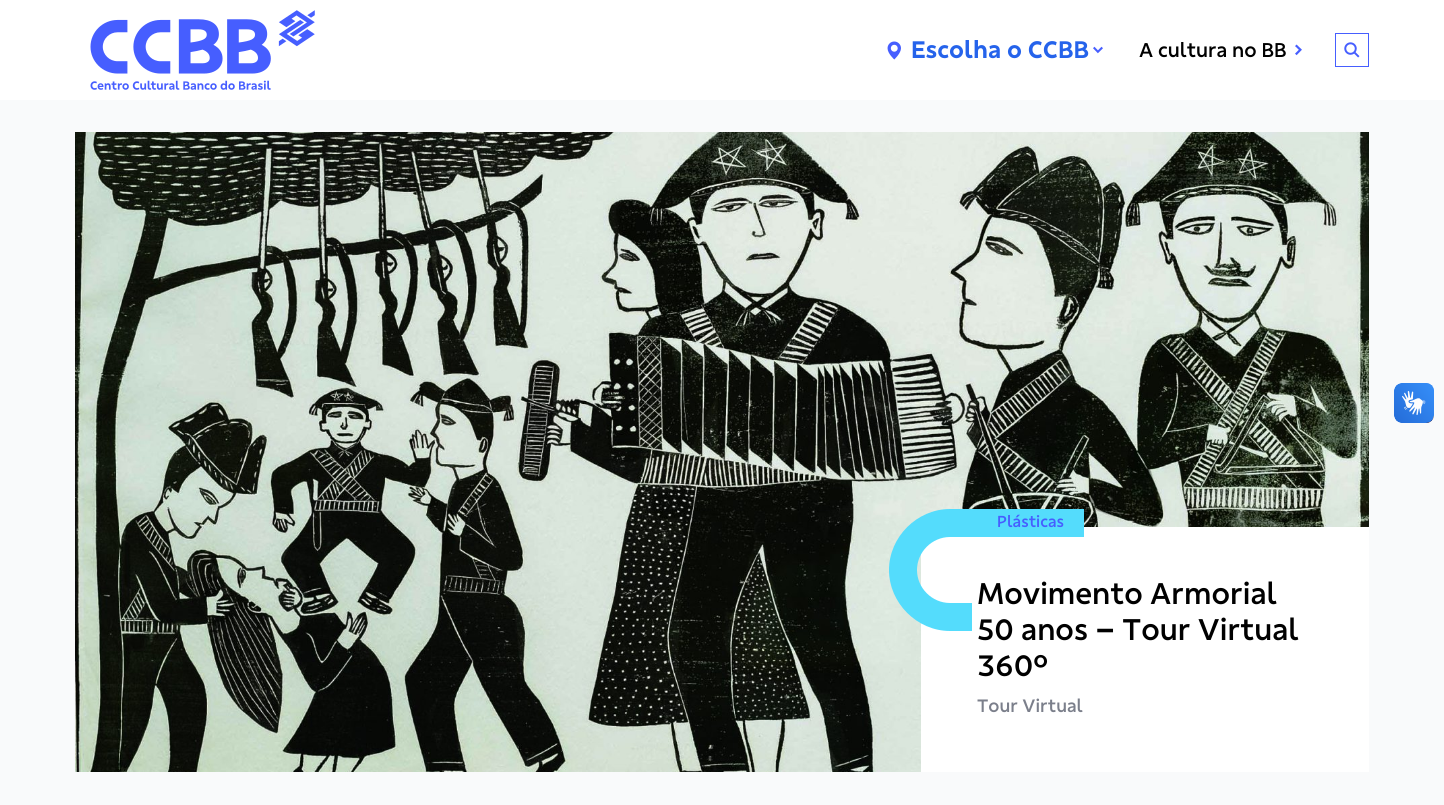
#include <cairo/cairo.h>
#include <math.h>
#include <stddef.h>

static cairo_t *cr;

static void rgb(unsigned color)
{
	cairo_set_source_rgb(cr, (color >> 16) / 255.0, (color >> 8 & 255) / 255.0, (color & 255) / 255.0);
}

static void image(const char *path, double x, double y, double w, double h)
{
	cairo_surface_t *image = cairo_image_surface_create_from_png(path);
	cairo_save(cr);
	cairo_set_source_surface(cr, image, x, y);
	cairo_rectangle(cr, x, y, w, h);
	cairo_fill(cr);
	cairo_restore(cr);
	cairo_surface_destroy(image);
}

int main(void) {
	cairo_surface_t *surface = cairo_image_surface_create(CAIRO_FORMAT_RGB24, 1444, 805);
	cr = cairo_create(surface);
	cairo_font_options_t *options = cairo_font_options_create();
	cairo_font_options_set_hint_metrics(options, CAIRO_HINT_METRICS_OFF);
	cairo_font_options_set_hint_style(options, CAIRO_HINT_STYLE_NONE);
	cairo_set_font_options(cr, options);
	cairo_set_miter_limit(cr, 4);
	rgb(0xf9fafb);
	cairo_paint(cr);
	rgb(0xffffff);
	cairo_rectangle(cr, 0, 0, 1444, 100);
	cairo_fill(cr);
	image("img/1.png", 90, 10, 225, 80);
	image("img/2.png", 887, 41, 14, 19);
	image("img/3.png", 1093, 46, 10, 8);
	image("img/4.png", 1295, 44, 7, 12);
	cairo_rectangle(cr, 1335.5, 33.5, 33, 33);
	rgb(0x465eff);
	cairo_set_line_width(cr, 1);
	cairo_stroke(cr);
	image("img/5.png", 1344, 42, 16, 16);
	image("img/6.png", 75, 132, 1294, 640);
	rgb(0xffffff);
	cairo_rectangle(cr, 921, 527, 448, 245);
	cairo_fill(cr);
	rgb(0x54dcfc);
	cairo_rectangle(cr, 1019, 509, 65, 28);
	cairo_fill(cr);
	image("img/7.png", 1394, 383, 40, 40);
	image("img/8.png", 1394, 383, 40, 40);
	cairo_select_font_face(cr, "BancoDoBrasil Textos", CAIRO_FONT_SLANT_NORMAL, CAIRO_FONT_WEIGHT_BOLD);
	cairo_set_font_size(cr, 24);
	rgb(0x2563eb);
	cairo_move_to(cr, 911, 58);
	cairo_show_text(cr, "Escolha o CCBB");
	cairo_select_font_face(cr, "BancoDoBrasil Textos Medium", CAIRO_FONT_SLANT_NORMAL, CAIRO_FONT_WEIGHT_NORMAL);
	cairo_set_font_size(cr, 20);
	rgb(0x000000);
	cairo_move_to(cr, 1139, 57);
	cairo_show_text(cr, "A cultura no BB");
	cairo_set_font_size(cr, 30);
	cairo_move_to(cr, 977, 604);
	cairo_show_text(cr, "Movimento Armorial");
	cairo_move_to(cr, 977, 640);
	cairo_show_text(cr, "50 anos – Tour Virtual");
	rgb(0x54dcfc);
	cairo_new_path(cr);
	cairo_move_to(cr, 972, 631);
	cairo_line_to(cr, 950, 631);
	cairo_curve_to(cr, 917, 631, 889, 603, 889, 570);
	cairo_curve_to(cr, 889, 537, 917, 509, 950, 509);
	cairo_line_to(cr, 1019, 509);
	cairo_line_to(cr, 1019, 537);
	cairo_line_to(cr, 950, 537);
	cairo_curve_to(cr, 932, 537, 917, 552, 917, 570);
	cairo_curve_to(cr, 917, 588, 932, 603, 950, 603);
	cairo_line_to(cr, 972, 603);
	cairo_close_path(cr);
	cairo_fill(cr);
	cairo_set_font_size(cr, 16);
	rgb(0x465eff);
	cairo_move_to(cr, 997, 527);
	cairo_show_text(cr, "Plásticas");
	cairo_set_font_size(cr, 30);
	rgb(0x000000);
	cairo_move_to(cr, 977, 676);
	cairo_show_text(cr, "360º");
	cairo_set_font_size(cr, 18);
	rgb(0x7b7f8b);
	cairo_move_to(cr, 977, 712);
	cairo_show_text(cr, "Tour Virtual");
	cairo_surface_write_to_png(surface, "page.png");
	cairo_font_options_destroy(options);
	cairo_destroy(cr);
	cairo_surface_destroy(surface);
	return 0;
}
